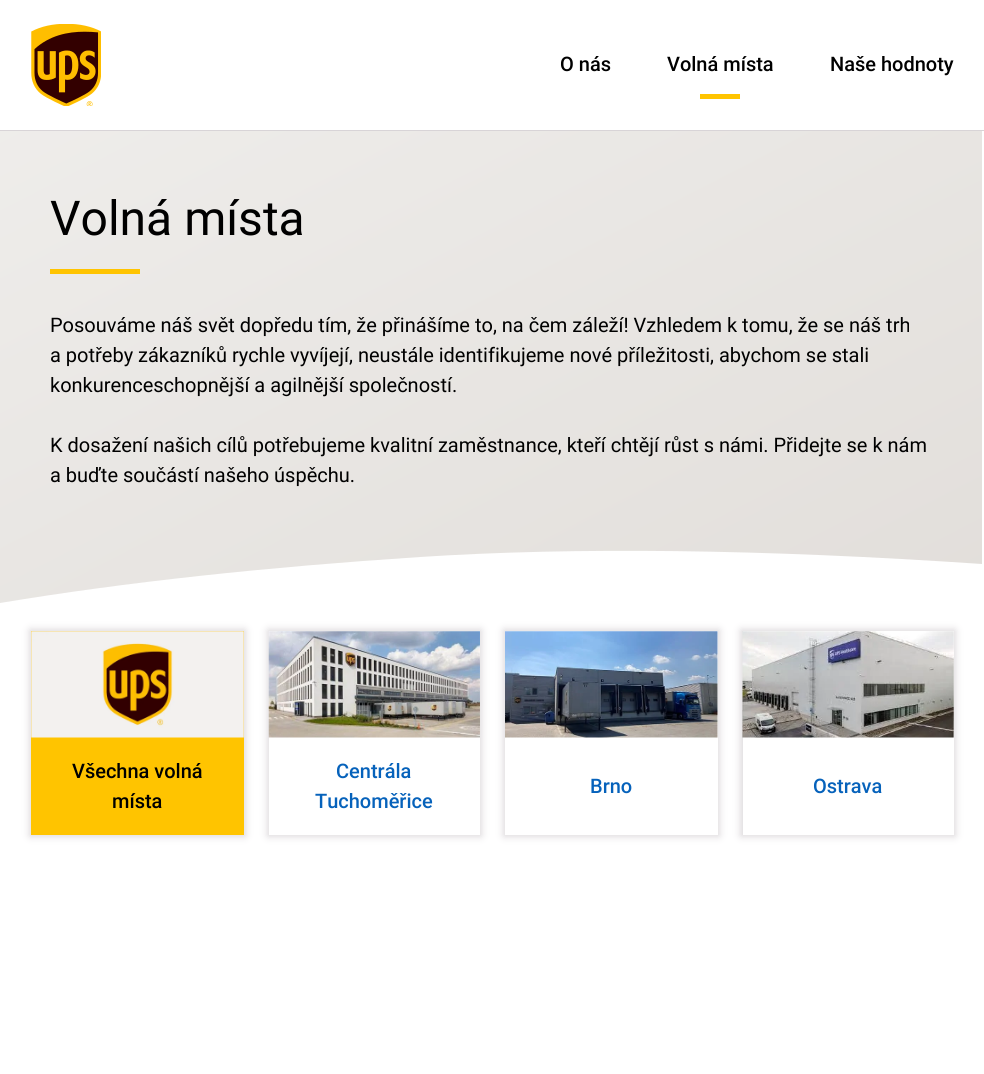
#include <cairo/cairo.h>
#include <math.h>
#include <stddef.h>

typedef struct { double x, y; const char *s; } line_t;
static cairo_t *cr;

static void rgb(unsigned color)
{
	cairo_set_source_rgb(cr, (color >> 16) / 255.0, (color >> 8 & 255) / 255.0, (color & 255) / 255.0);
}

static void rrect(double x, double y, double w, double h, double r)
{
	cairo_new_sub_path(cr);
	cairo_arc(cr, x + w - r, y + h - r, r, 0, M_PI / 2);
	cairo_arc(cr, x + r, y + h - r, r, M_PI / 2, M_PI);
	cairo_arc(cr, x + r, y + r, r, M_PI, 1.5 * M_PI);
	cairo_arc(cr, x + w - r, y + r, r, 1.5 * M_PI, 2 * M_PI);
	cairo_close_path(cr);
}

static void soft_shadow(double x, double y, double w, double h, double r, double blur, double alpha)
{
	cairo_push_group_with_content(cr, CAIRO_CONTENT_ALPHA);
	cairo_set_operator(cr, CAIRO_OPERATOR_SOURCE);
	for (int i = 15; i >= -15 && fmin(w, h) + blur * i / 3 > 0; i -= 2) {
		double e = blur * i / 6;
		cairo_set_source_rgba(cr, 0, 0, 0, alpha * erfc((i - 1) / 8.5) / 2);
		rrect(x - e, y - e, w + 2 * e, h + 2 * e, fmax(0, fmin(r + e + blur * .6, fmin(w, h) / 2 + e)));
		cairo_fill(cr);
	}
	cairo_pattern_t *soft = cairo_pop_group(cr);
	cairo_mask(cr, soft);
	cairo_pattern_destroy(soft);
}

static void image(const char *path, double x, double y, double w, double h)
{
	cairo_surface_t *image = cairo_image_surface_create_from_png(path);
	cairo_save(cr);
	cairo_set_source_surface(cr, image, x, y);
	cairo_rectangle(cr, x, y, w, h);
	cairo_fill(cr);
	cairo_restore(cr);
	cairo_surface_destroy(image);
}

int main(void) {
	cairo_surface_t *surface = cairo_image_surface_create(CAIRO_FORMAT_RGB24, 984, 1074);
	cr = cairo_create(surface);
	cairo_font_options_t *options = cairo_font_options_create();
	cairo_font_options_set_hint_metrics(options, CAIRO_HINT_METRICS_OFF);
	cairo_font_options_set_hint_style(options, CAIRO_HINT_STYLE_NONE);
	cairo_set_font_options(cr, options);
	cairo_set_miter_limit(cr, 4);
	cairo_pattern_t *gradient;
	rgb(0xffffff);
	cairo_paint(cr);
	rgb(0xd8d4d7);
	cairo_rectangle(cr, 0, 130, 984, 1);
	cairo_fill(cr);
	image("img/1.png", 31, 24, 70, 82);
	rgb(0xffc400);
	cairo_rectangle(cr, 700, 94, 40, 5);
	cairo_fill(cr);
	cairo_save(cr);
	cairo_rectangle(cr, 0, 131, 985, 473);
	cairo_clip(cr);
	gradient = cairo_pattern_create_linear(738, 944, 135, -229);
	cairo_pattern_add_color_stop_rgba(gradient, 0, 0.875, 0.859, 0.843, 1);
	cairo_pattern_add_color_stop_rgba(gradient, 1, 0.949, 0.945, 0.937, 1);
	cairo_set_source(cr, gradient);
	cairo_pattern_destroy(gradient);
	cairo_new_path(cr);
	cairo_move_to(cr, 0, -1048);
	cairo_line_to(cr, 0, 603);
	cairo_curve_to(cr, 126, 582, 267, 567, 420, 557);
	cairo_curve_to(cr, 574, 547, 761, 549, 982, 564);
	cairo_line_to(cr, 982, -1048);
	cairo_close_path(cr);
	cairo_fill(cr);
	cairo_restore(cr);
	cairo_rectangle(cr, 50, 269, 90, 5);
	cairo_fill(cr);
	rgb(0xd8d4d7);
	soft_shadow(30, 630, 215, 206, 0, 4, 1);
	rgb(0xffc400);
	cairo_rectangle(cr, 31, 631, 213, 204);
	cairo_fill(cr);
	image("img/2.png", 31, 631, 213, 107);
	cairo_save(cr);
	cairo_set_fill_rule(cr, CAIRO_FILL_RULE_EVEN_ODD);
	cairo_new_path(cr);
	cairo_move_to(cr, 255, 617);
	cairo_line_to(cr, 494, 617);
	cairo_line_to(cr, 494, 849);
	cairo_line_to(cr, 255, 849);
	cairo_close_path(cr);
	cairo_move_to(cr, 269, 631);
	cairo_line_to(cr, 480, 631);
	cairo_line_to(cr, 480, 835);
	cairo_line_to(cr, 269, 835);
	cairo_close_path(cr);
	cairo_clip(cr);
	rgb(0xd8d4d7);
	soft_shadow(268, 630, 213, 206, 0, 4, 1);
	cairo_restore(cr);
	image("img/3.png", 268, 631, 212, 107);
	cairo_save(cr);
	cairo_set_fill_rule(cr, CAIRO_FILL_RULE_EVEN_ODD);
	cairo_new_path(cr);
	cairo_move_to(cr, 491, 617);
	cairo_line_to(cr, 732, 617);
	cairo_line_to(cr, 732, 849);
	cairo_line_to(cr, 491, 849);
	cairo_close_path(cr);
	cairo_move_to(cr, 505, 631);
	cairo_line_to(cr, 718, 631);
	cairo_line_to(cr, 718, 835);
	cairo_line_to(cr, 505, 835);
	cairo_close_path(cr);
	cairo_clip(cr);
	rgb(0xd8d4d7);
	soft_shadow(504, 630, 215, 206, 0, 4, 1);
	cairo_restore(cr);
	image("img/4.png", 505, 631, 213, 107);
	cairo_save(cr);
	cairo_set_fill_rule(cr, CAIRO_FILL_RULE_EVEN_ODD);
	cairo_new_path(cr);
	cairo_move_to(cr, 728, 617);
	cairo_line_to(cr, 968, 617);
	cairo_line_to(cr, 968, 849);
	cairo_line_to(cr, 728, 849);
	cairo_close_path(cr);
	cairo_move_to(cr, 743, 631);
	cairo_line_to(cr, 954, 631);
	cairo_line_to(cr, 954, 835);
	cairo_line_to(cr, 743, 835);
	cairo_close_path(cr);
	cairo_clip(cr);
	rgb(0xd8d4d7);
	soft_shadow(741, 630, 214, 206, 0, 4, 1);
	cairo_restore(cr);
	image("img/5.png", 742, 631, 212, 107);
	cairo_select_font_face(cr, "Roboto Medium", CAIRO_FONT_SLANT_NORMAL, CAIRO_FONT_WEIGHT_NORMAL);
	cairo_set_font_size(cr, 20);
	rgb(0x000000);
	{
		static const line_t items[] = {
			{560, 71, "O nás"},
			{667, 71, "Volná místa"},
			{830, 71, "Naše hodnoty"},
		};
		for (size_t i = 0; i < sizeof items / sizeof *items; i++) {
			cairo_move_to(cr, items[i].x, items[i].y);
			cairo_show_text(cr, items[i].s);
		}
	}
	cairo_select_font_face(cr, "Roboto", CAIRO_FONT_SLANT_NORMAL, CAIRO_FONT_WEIGHT_NORMAL);
	cairo_set_font_size(cr, 48);
	cairo_move_to(cr, 50, 235);
	cairo_show_text(cr, "Volná místa");
	cairo_set_font_size(cr, 20);
	{
		static const line_t items[] = {
			{50, 332, "Posouváme náš svět dopředu tím, že přinášíme to, na čem záleží! Vzhledem k tomu, že se náš trh"},
			{50, 362, "a potřeby zákazníků rychle vyvíjejí, neustále identifikujeme nové příležitosti, abychom se stali"},
			{50, 392, "konkurenceschopnější a agilnější společností."},
			{50, 452, "K dosažení našich cílů potřebujeme kvalitní zaměstnance, kteří chtějí růst s námi. Přidejte se k nám"},
			{50, 482, "a buďte součástí našeho úspěchu."},
		};
		for (size_t i = 0; i < sizeof items / sizeof *items; i++) {
			cairo_move_to(cr, items[i].x, items[i].y);
			cairo_show_text(cr, items[i].s);
		}
	}
	cairo_select_font_face(cr, "Roboto Medium", CAIRO_FONT_SLANT_NORMAL, CAIRO_FONT_WEIGHT_NORMAL);
	cairo_move_to(cr, 72, 778);
	cairo_show_text(cr, "Všechna volná");
	cairo_move_to(cr, 112, 808);
	cairo_show_text(cr, "místa");
	rgb(0x0662bb);
	{
		static const line_t items[] = {
			{336, 778, "Centrála"},
			{315, 808, "Tuchoměřice"},
			{590, 793, "Brno"},
			{813, 793, "Ostrava"},
		};
		for (size_t i = 0; i < sizeof items / sizeof *items; i++) {
			cairo_move_to(cr, items[i].x, items[i].y);
			cairo_show_text(cr, items[i].s);
		}
	}
	cairo_surface_write_to_png(surface, "page.png");
	cairo_font_options_destroy(options);
	cairo_destroy(cr);
	cairo_surface_destroy(surface);
	return 0;
}
